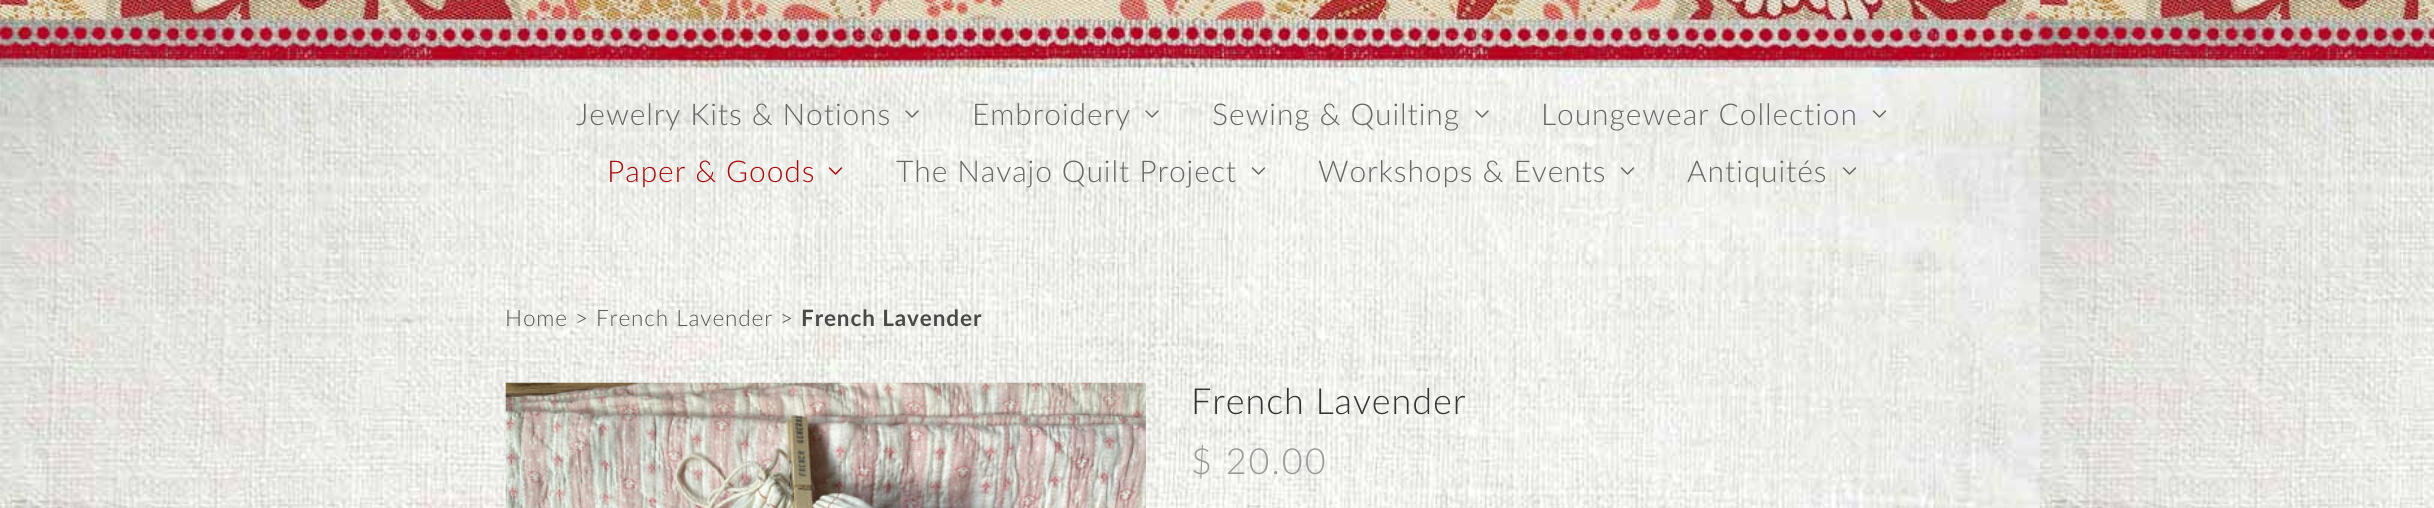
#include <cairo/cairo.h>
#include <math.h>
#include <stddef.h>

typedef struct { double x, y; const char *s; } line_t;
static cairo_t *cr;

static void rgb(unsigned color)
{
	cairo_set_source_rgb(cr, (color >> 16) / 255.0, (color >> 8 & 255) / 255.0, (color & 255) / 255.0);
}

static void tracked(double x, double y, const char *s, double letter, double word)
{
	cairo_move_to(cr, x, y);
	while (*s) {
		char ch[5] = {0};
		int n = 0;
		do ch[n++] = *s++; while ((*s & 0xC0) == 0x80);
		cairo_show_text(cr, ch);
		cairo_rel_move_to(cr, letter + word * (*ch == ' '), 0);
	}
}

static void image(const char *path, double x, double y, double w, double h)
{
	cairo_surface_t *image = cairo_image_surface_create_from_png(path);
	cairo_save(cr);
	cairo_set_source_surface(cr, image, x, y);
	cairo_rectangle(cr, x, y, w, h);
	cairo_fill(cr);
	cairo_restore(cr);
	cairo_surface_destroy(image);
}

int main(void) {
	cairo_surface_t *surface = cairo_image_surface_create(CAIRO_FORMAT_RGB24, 2434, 508);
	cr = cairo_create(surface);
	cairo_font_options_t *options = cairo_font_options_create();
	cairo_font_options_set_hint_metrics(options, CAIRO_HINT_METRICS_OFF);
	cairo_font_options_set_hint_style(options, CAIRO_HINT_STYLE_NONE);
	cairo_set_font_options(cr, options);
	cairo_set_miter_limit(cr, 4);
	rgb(0xffffff);
	cairo_paint(cr);
	image("img/1.png", 0, 0, 2434, 508);
	image("img/2.png", 905, 110, 14, 8);
	image("img/3.png", 1145, 110, 14, 8);
	image("img/4.png", 1475, 110, 14, 8);
	image("img/5.png", 1872, 110, 15, 8);
	image("img/6.png", 828, 167, 15, 8);
	image("img/7.png", 1251, 167, 15, 8);
	image("img/8.png", 1620, 167, 15, 8);
	image("img/9.png", 1842, 167, 15, 8);
	image("img/10.png", 505, 382, 641, 126);
	cairo_select_font_face(cr, "Lato Light", CAIRO_FONT_SLANT_NORMAL, CAIRO_FONT_WEIGHT_NORMAL);
	cairo_set_font_size(cr, 30);
	rgb(0x666666);
	{
		static const line_t items[] = {
			{576, 125, "Jewelry Kits & Notions"},
			{972, 125, "Embroidery"},
			{1212, 125, "Sewing & Quilting"},
			{1541, 125, "Loungewear Collection"},
		};
		for (size_t i = 0; i < sizeof items / sizeof *items; i++) {
			tracked(items[i].x, items[i].y, items[i].s, 0.9, 0);
		}
	}
	rgb(0xa80a0a);
	tracked(607, 182, "Paper & Goods", 0.9, 0);
	rgb(0x666666);
	{
		static const line_t items[] = {
			{896, 182, "The Navajo Quilt Project"},
			{1318, 182, "Workshops & Events"},
			{1687, 182, "Antiquités"},
		};
		for (size_t i = 0; i < sizeof items / sizeof *items; i++) {
			tracked(items[i].x, items[i].y, items[i].s, 0.9, 0);
		}
	}
	cairo_set_font_size(cr, 22.5);
	rgb(0x555555);
	tracked(505, 326, "Home", 0.9, 0);
	rgb(0x494948);
	tracked(575, 326, ">", 0.9, 0);
	rgb(0x555555);
	tracked(596, 326, "French Lavender", 0.9, 0);
	rgb(0x494948);
	tracked(780, 326, ">", 0.9, 0);
	cairo_select_font_face(cr, "Lato", CAIRO_FONT_SLANT_NORMAL, CAIRO_FONT_WEIGHT_BOLD);
	tracked(801, 326, "French Lavender", 0.9, 0);
	cairo_select_font_face(cr, "Lato Light", CAIRO_FONT_SLANT_NORMAL, CAIRO_FONT_WEIGHT_NORMAL);
	cairo_set_font_size(cr, 36);
	rgb(0x333333);
	tracked(1191, 414, "French Lavender", 0.9, 0);
	rgb(0x999999);
	tracked(1191, 474, "$ 20.00", 2, 0);
	cairo_surface_write_to_png(surface, "page.png");
	cairo_font_options_destroy(options);
	cairo_destroy(cr);
	cairo_surface_destroy(surface);
	return 0;
}
